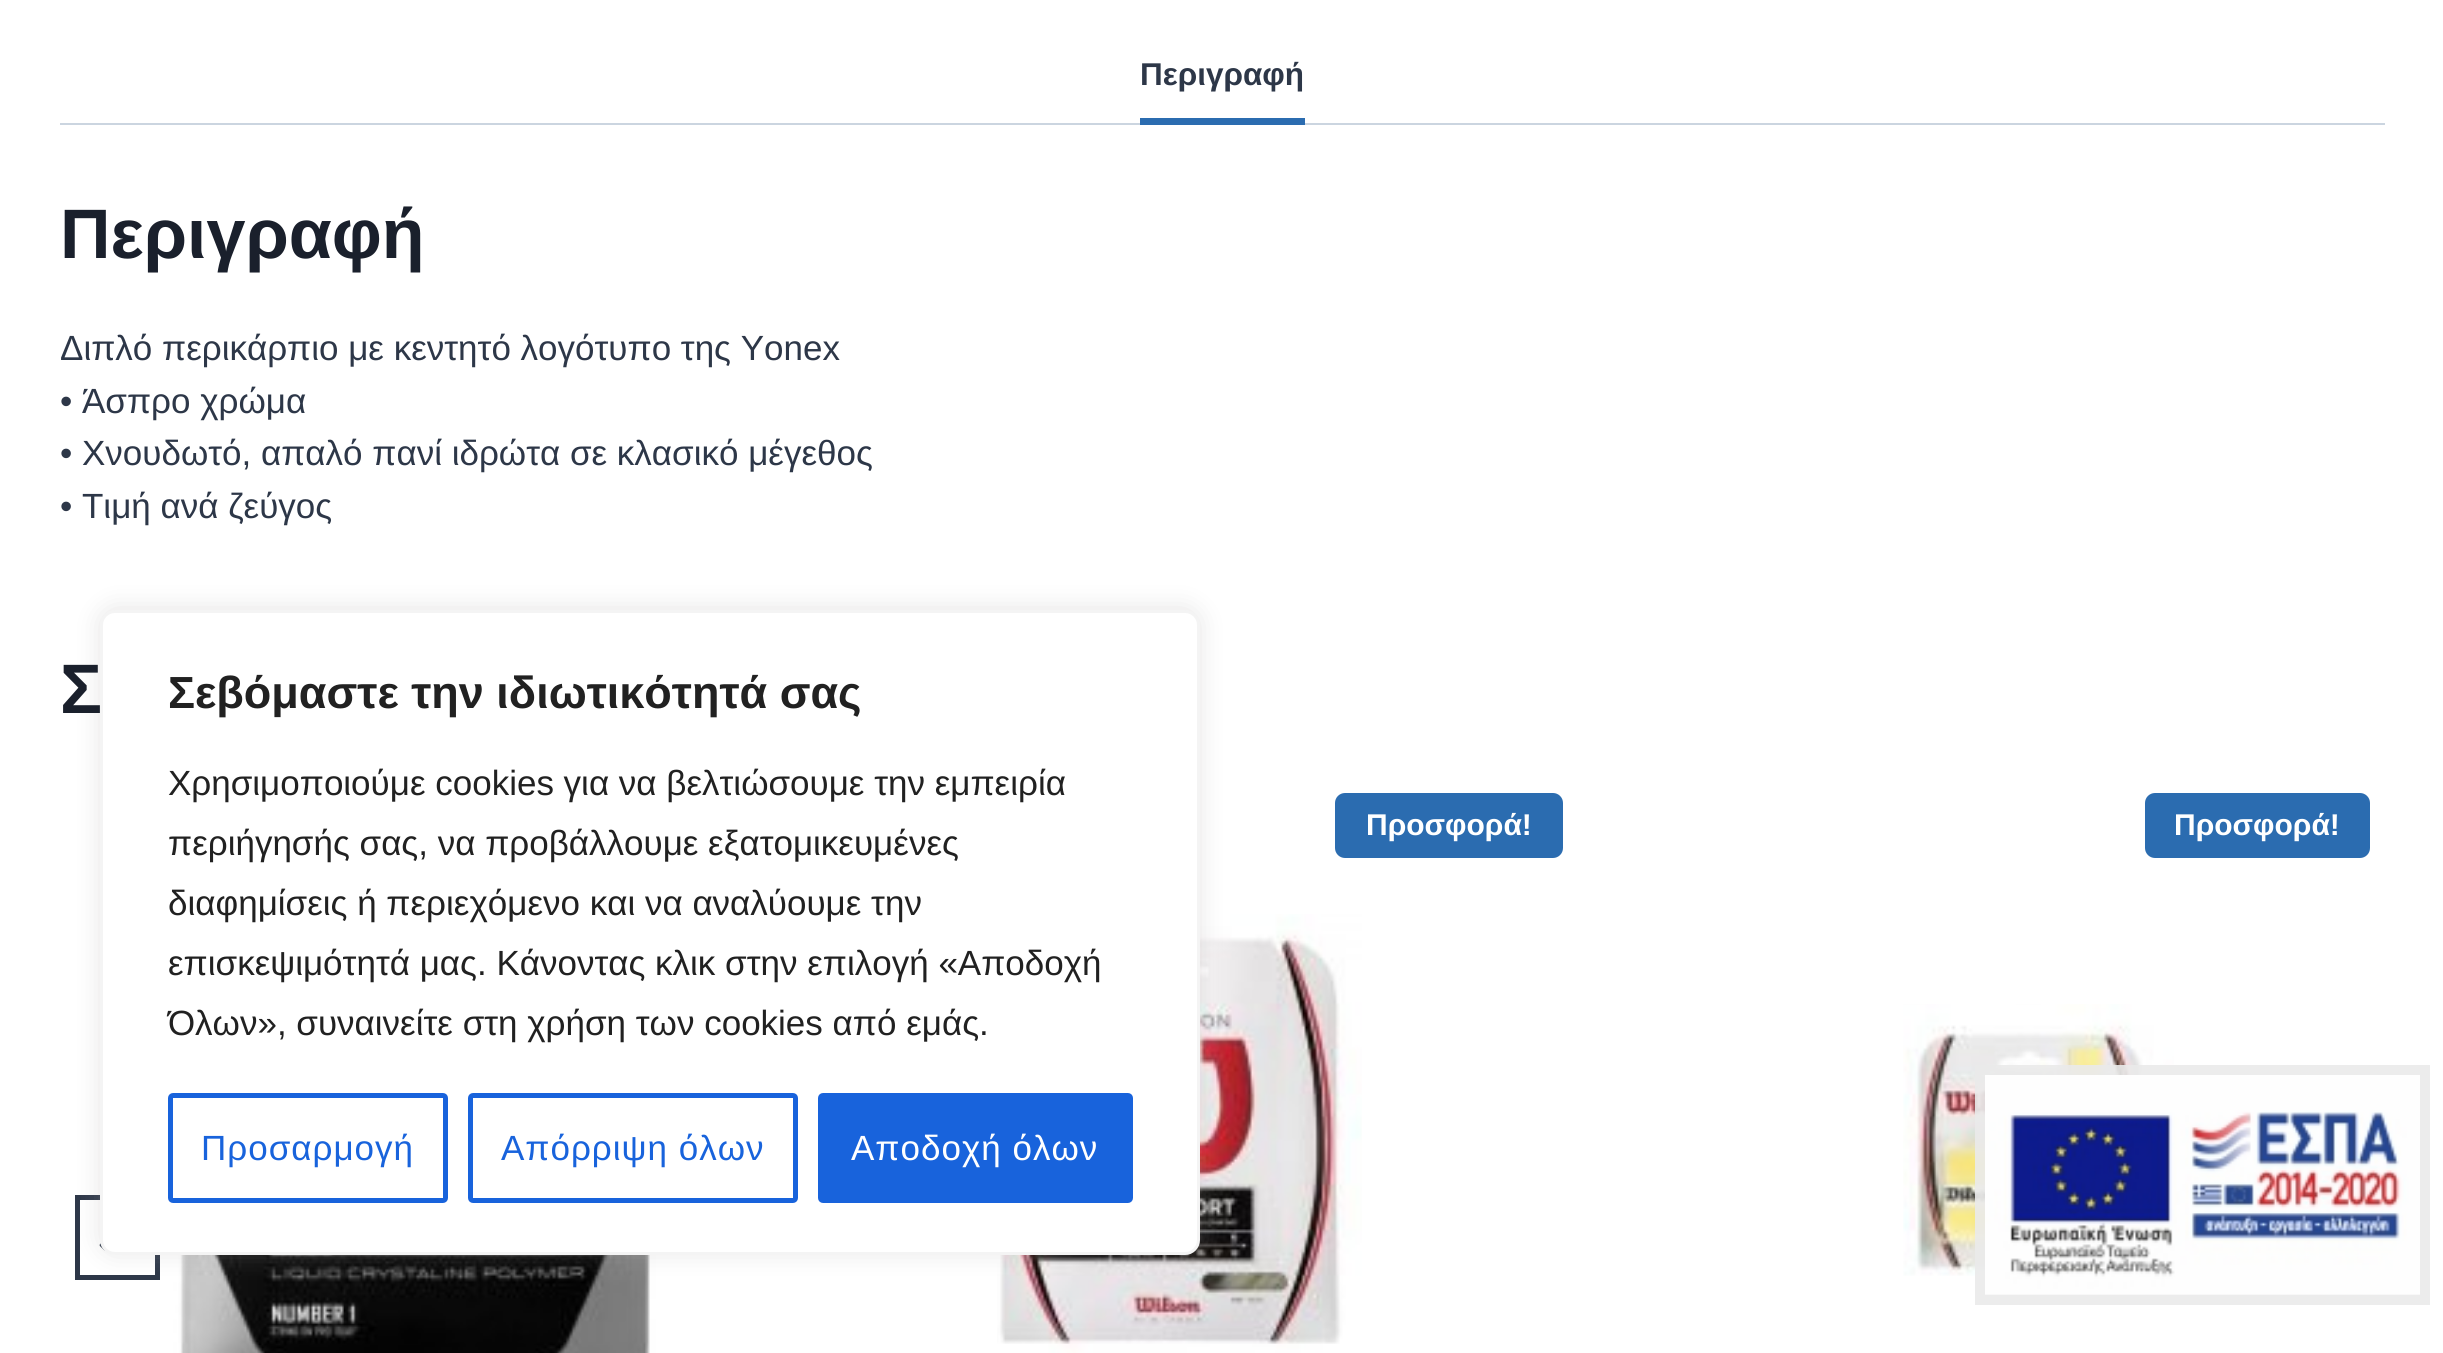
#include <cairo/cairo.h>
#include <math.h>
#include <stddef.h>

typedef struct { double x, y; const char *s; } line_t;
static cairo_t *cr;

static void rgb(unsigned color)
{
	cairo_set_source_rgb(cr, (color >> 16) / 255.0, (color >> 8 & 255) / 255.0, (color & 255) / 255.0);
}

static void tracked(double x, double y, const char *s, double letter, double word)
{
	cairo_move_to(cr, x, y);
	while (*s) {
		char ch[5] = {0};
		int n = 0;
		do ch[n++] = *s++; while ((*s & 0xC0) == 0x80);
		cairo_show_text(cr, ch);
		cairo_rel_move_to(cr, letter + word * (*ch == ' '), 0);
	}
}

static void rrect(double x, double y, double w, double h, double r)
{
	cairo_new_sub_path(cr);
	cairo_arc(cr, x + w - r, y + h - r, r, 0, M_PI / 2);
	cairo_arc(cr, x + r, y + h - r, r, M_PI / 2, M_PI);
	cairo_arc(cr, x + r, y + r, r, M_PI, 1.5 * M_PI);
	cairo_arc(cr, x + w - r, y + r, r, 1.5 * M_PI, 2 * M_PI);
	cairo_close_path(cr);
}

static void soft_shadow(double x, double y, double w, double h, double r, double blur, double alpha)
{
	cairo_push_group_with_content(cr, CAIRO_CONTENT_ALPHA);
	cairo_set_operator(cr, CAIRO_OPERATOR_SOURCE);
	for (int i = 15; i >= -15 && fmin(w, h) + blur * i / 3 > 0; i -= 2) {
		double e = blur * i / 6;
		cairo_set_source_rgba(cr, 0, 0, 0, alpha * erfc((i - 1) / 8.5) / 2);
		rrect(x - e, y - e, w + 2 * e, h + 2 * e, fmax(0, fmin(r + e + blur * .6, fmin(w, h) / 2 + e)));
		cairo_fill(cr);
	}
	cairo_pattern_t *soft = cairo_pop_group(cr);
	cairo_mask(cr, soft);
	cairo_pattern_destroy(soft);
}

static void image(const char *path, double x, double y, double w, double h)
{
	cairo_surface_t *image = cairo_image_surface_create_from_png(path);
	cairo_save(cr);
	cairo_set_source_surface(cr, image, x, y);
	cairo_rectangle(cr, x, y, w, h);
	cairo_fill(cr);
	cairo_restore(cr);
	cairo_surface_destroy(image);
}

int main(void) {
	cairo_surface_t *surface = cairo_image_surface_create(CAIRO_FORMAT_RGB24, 2443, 1353);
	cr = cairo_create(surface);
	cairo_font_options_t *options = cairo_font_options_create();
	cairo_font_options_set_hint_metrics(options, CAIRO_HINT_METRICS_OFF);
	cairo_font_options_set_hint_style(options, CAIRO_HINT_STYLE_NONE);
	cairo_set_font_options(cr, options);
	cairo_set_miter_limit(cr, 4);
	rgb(0xffffff);
	cairo_paint(cr);
	rgb(0xcbd5e0);
	cairo_rectangle(cr, 60, 123, 2325, 2);
	cairo_fill(cr);
	rgb(0x2b6cb0);
	cairo_rectangle(cr, 1140, 118, 165, 7);
	cairo_fill(cr);
	rrect(1335, 793, 228, 65, 10);
	cairo_fill(cr);
	image("img/1.png", 997, 914, 365, 439);
	rrect(2145, 793, 225, 65, 10);
	cairo_fill(cr);
	image("img/2.png", 1903, 1004, 271, 272);
	image("img/3.png", 173, 1255, 492, 98);
	cairo_rectangle(cr, 77.5, 1197.5, 80, 80);
	rgb(0x2d3748);
	cairo_set_line_width(cr, 5);
	cairo_stroke(cr);
	image("img/4.png", 99, 1243, 6, 8);
	rgb(0xacabab);
	soft_shadow(100, 608, 1100, 645, 15, 12.5, 0.3);
	rgb(0xffffff);
	rrect(101.5, 611.5, 1097, 642, 13.5);
	cairo_fill_preserve(cr);
	rgb(0xf4f4f4);
	cairo_set_line_width(cr, 3);
	cairo_stroke(cr);
	rrect(170.5, 1095.5, 275, 105, 2.5);
	rgb(0x1863dc);
	cairo_set_line_width(cr, 5);
	cairo_stroke(cr);
	rrect(470.5, 1095.5, 325, 105, 2.5);
	cairo_stroke(cr);
	rrect(820.5, 1095.5, 310, 105, 2.5);
	cairo_fill_preserve(cr);
	cairo_stroke(cr);
	cairo_set_source_rgba(cr, 0.918, 0.918, 0.918, 0.91);
	cairo_rectangle(cr, 1975, 1065, 455, 240);
	cairo_fill(cr);
	image("img/5.png", 1985, 1075, 435, 220);
	cairo_select_font_face(cr, "Liberation Sans", CAIRO_FONT_SLANT_NORMAL, CAIRO_FONT_WEIGHT_BOLD);
	cairo_set_font_size(cr, 31.5);
	rgb(0x2d3748);
	cairo_move_to(cr, 1140, 85);
	cairo_show_text(cr, "Περιγραφή");
	cairo_set_font_size(cr, 70);
	rgb(0x1a202c);
	cairo_move_to(cr, 60, 258);
	cairo_show_text(cr, "Περιγραφή");
	cairo_select_font_face(cr, "Liberation Sans", CAIRO_FONT_SLANT_NORMAL, CAIRO_FONT_WEIGHT_NORMAL);
	cairo_set_font_size(cr, 35);
	rgb(0x2d3748);
	{
		static const line_t items[] = {
			{60, 360, "Διπλό περικάρπιο με κεντητό λογότυπο της Yonex"},
			{60, 413, "• Άσπρο χρώμα"},
			{60, 465, "• Χνουδωτό, απαλό πανί ιδρώτα σε κλασικό μέγεθος"},
			{60, 518, "• Τιμή ανά ζεύγος"},
		};
		for (size_t i = 0; i < sizeof items / sizeof *items; i++) {
			cairo_move_to(cr, items[i].x, items[i].y);
			cairo_show_text(cr, items[i].s);
		}
	}
	cairo_select_font_face(cr, "Liberation Sans", CAIRO_FONT_SLANT_NORMAL, CAIRO_FONT_WEIGHT_BOLD);
	cairo_set_font_size(cr, 70);
	rgb(0x1a202c);
	cairo_move_to(cr, 60, 713);
	cairo_show_text(cr, "Σ");
	cairo_set_font_size(cr, 30);
	rgb(0xffffff);
	cairo_move_to(cr, 1366, 835);
	cairo_show_text(cr, "Προσφορά!");
	cairo_move_to(cr, 2174, 835);
	cairo_show_text(cr, "Προσφορά!");
	cairo_set_font_size(cr, 45);
	rgb(0x212121);
	cairo_move_to(cr, 168, 708);
	cairo_show_text(cr, "Σεβόμαστε την ιδιωτικότητά σας");
	cairo_select_font_face(cr, "Liberation Sans", CAIRO_FONT_SLANT_NORMAL, CAIRO_FONT_WEIGHT_NORMAL);
	cairo_set_font_size(cr, 35);
	{
		static const line_t items[] = {
			{168, 795, "Χρησιμοποιούμε cookies για να βελτιώσουμε την εμπειρία"},
			{168, 855, "περιήγησής σας, να προβάλλουμε εξατομικευμένες"},
			{168, 915, "διαφημίσεις ή περιεχόμενο και να αναλύουμε την"},
			{168, 975, "επισκεψιμότητά μας. Κάνοντας κλικ στην επιλογή «Αποδοχή"},
			{168, 1035, "Όλων», συναινείτε στη χρήση των cookies από εμάς."},
		};
		for (size_t i = 0; i < sizeof items / sizeof *items; i++) {
			cairo_move_to(cr, items[i].x, items[i].y);
			cairo_show_text(cr, items[i].s);
		}
	}
	rgb(0x1863dc);
	tracked(201, 1160, "Προσαρμογή", 1, 0);
	tracked(501, 1160, "Απόρριψη όλων", 1, 0);
	rgb(0xffffff);
	tracked(851, 1160, "Αποδοχή όλων", 1, 0);
	cairo_surface_write_to_png(surface, "page.png");
	cairo_font_options_destroy(options);
	cairo_destroy(cr);
	cairo_surface_destroy(surface);
	return 0;
}
